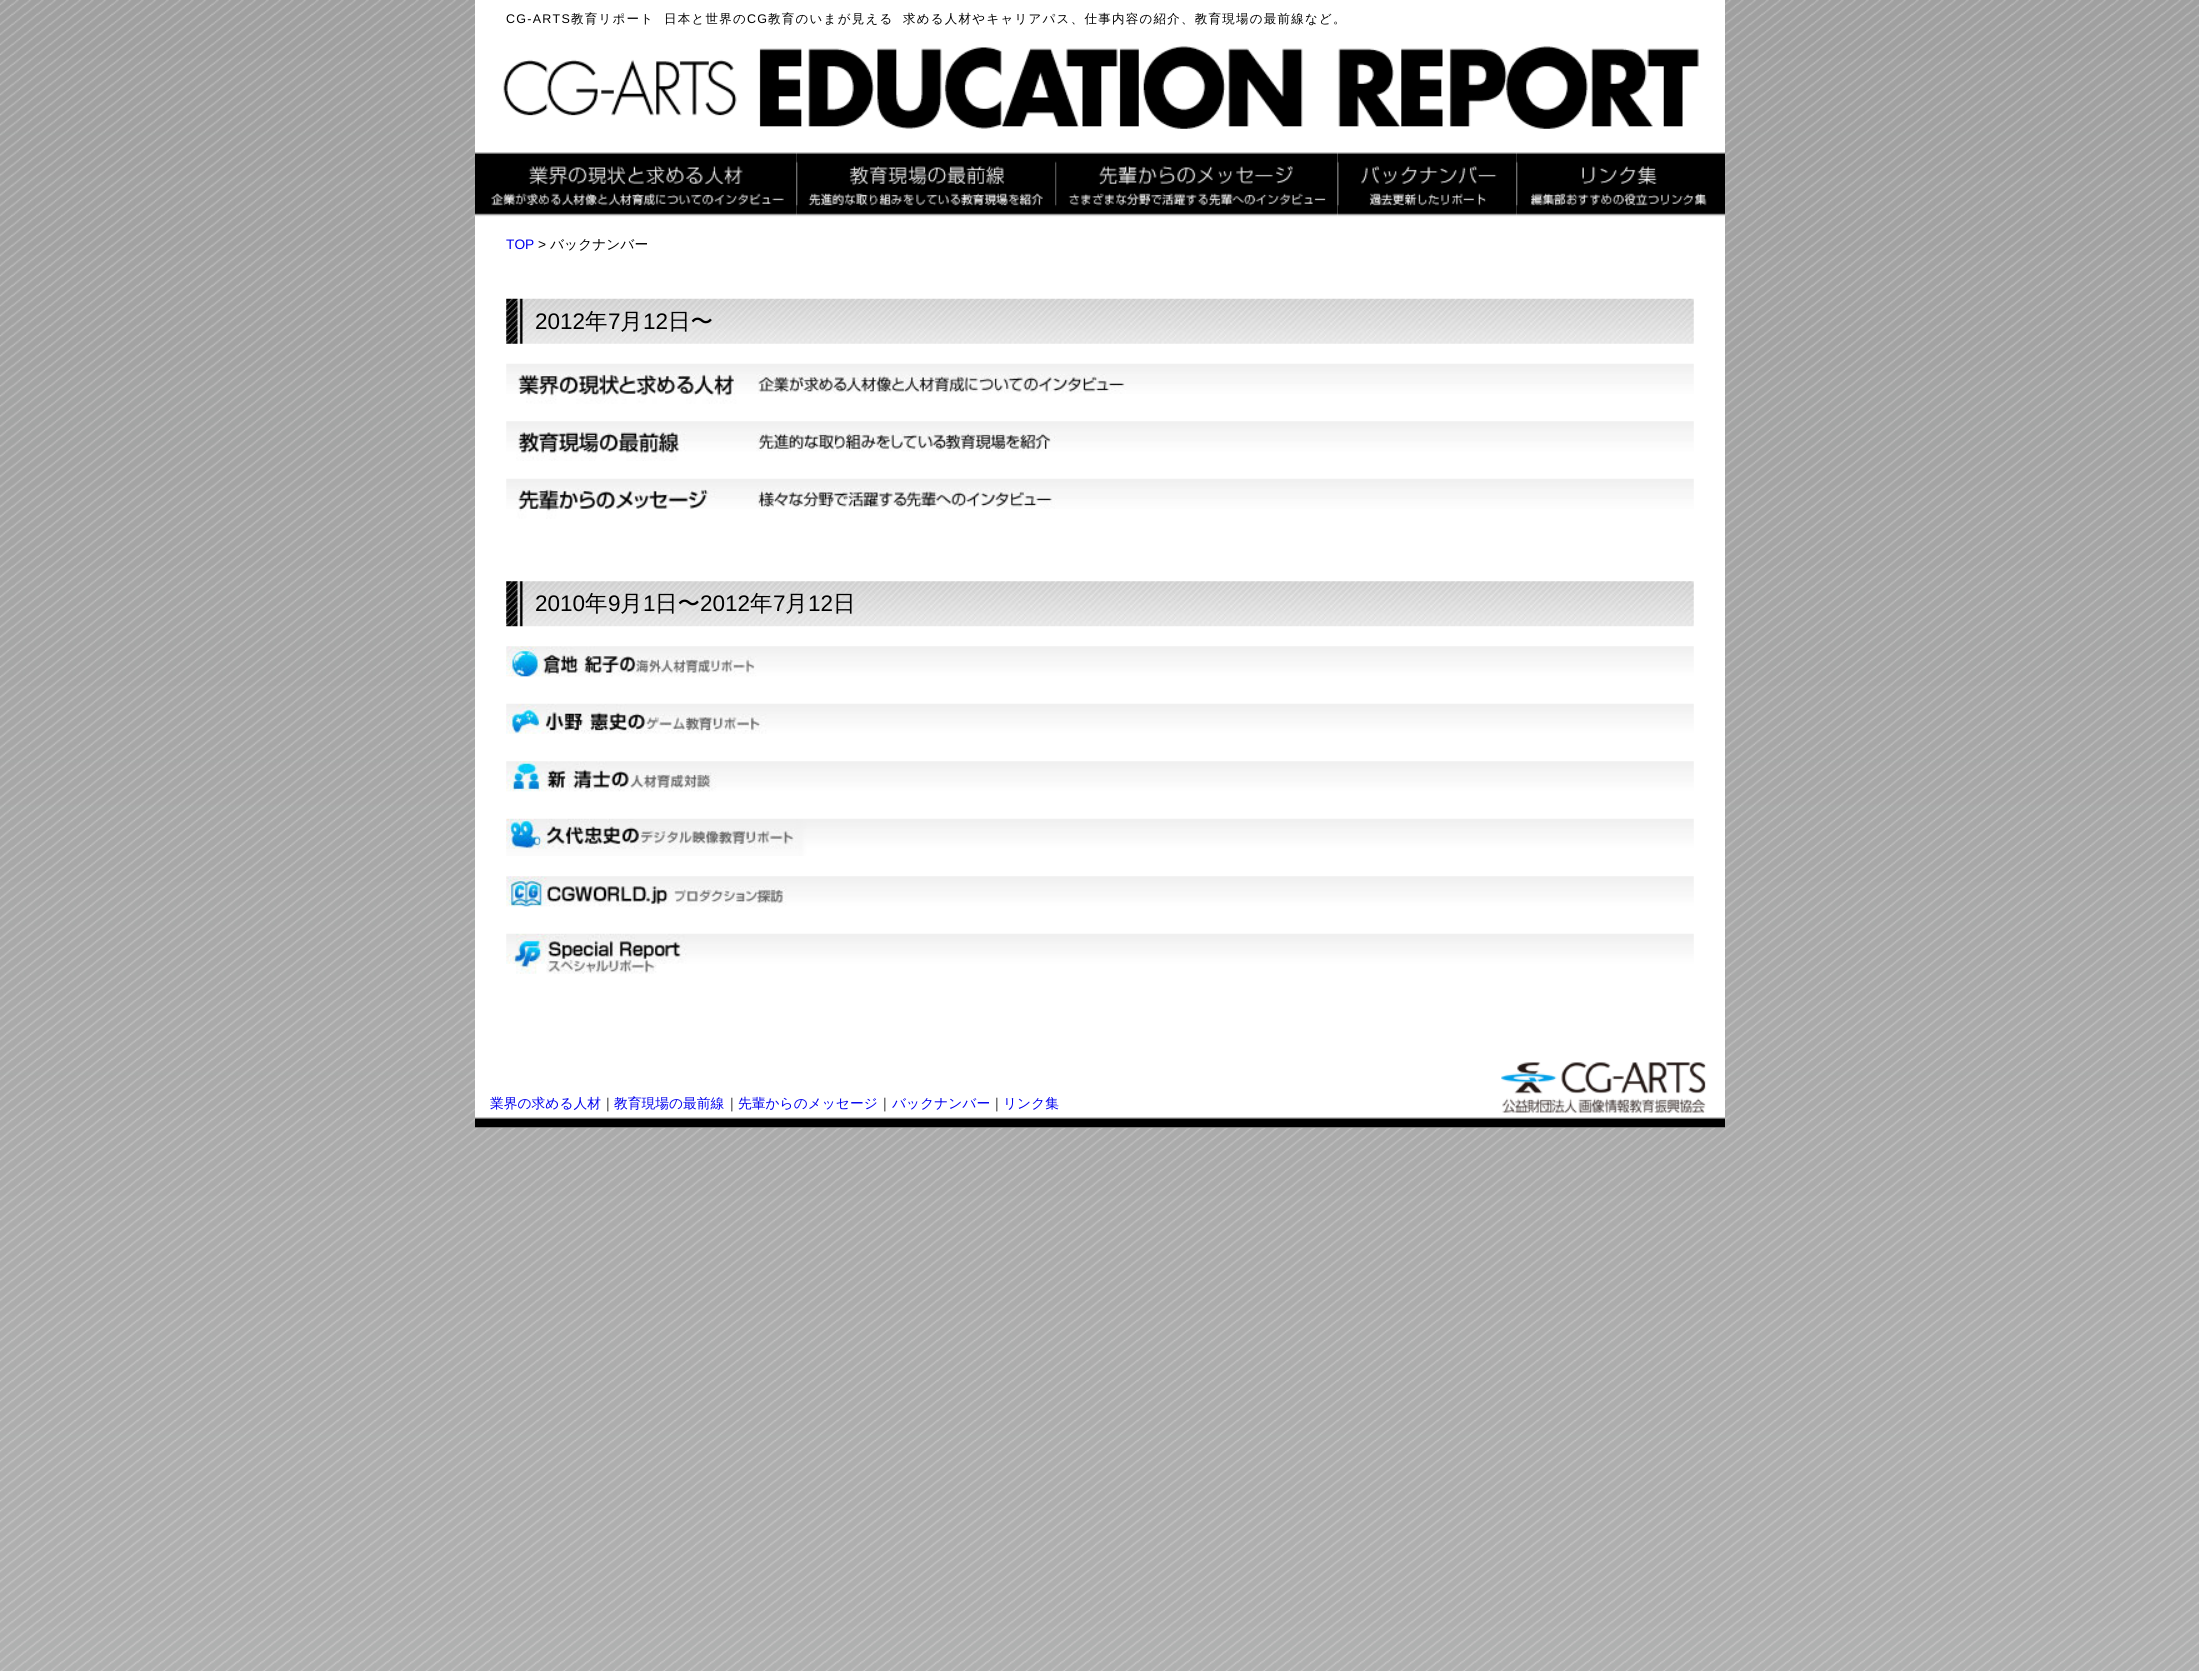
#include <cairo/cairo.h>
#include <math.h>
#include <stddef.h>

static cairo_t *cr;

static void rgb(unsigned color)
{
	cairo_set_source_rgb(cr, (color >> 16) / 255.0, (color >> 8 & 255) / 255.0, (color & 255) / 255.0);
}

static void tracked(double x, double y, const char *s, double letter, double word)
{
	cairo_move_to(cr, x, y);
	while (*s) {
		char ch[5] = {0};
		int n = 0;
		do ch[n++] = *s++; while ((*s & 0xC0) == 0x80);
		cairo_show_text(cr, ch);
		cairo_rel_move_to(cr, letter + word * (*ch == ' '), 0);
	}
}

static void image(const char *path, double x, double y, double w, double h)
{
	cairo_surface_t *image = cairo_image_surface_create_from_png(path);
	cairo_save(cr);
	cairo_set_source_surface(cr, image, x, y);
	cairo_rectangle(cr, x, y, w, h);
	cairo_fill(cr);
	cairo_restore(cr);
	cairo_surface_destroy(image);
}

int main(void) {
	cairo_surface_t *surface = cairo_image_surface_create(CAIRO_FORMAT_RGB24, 2199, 1671);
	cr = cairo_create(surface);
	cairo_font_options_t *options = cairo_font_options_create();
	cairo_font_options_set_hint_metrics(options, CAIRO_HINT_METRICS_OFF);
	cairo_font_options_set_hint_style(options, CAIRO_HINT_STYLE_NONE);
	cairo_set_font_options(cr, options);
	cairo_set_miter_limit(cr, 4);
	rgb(0xffffff);
	cairo_paint(cr);
	image("img/1.png", 0, 0, 2199, 1671);
	rgb(0xffffff);
	cairo_rectangle(cr, 475, 0, 1250, 1128);
	cairo_fill(cr);
	image("img/2.png", 503, 46, 1196, 83);
	image("img/3.png", 475, 152, 322, 65);
	image("img/4.png", 796, 152, 259, 65);
	image("img/5.png", 1055, 152, 283, 65);
	image("img/6.png", 1337, 152, 180, 65);
	image("img/7.png", 1516, 152, 209, 65);
	image("img/8.png", 506, 298, 1188, 46);
	image("img/9.png", 506, 363, 1188, 41);
	image("img/10.png", 506, 421, 1188, 40);
	image("img/11.png", 506, 478, 1188, 41);
	image("img/12.png", 506, 581, 1188, 46);
	image("img/13.png", 506, 646, 1188, 31);
	image("img/14.png", 506, 703, 1188, 31);
	image("img/15.png", 506, 761, 1188, 31);
	image("img/16.png", 506, 818, 1188, 38);
	image("img/17.png", 506, 876, 1188, 31);
	image("img/18.png", 506, 933, 1188, 41);
	image("img/19.png", 475, 1062, 1250, 66);
	cairo_select_font_face(cr, "Liberation Sans", CAIRO_FONT_SLANT_NORMAL, CAIRO_FONT_WEIGHT_NORMAL);
	cairo_set_font_size(cr, 12.5);
	rgb(0x000000);
	tracked(506, 23, "CG-ARTS", 1.25, 0);
	cairo_select_font_face(cr, "WenQuanYi Zen Hei Medium", CAIRO_FONT_SLANT_NORMAL, CAIRO_FONT_WEIGHT_NORMAL);
	tracked(571, 23, "教育リポート", 1.25, 0);
	tracked(664, 23, "日本と世界の", 1.25, 0);
	cairo_select_font_face(cr, "Liberation Sans", CAIRO_FONT_SLANT_NORMAL, CAIRO_FONT_WEIGHT_NORMAL);
	tracked(747, 23, "CG", 1.25, 0);
	cairo_select_font_face(cr, "WenQuanYi Zen Hei Medium", CAIRO_FONT_SLANT_NORMAL, CAIRO_FONT_WEIGHT_NORMAL);
	tracked(768, 23, "教育のいまが見える", 1.25, 0);
	tracked(903, 23, "求める人材やキャリアパス、仕事内容の紹介、教育現場の最前線など。", 1.25, 0);
	cairo_select_font_face(cr, "Liberation Sans", CAIRO_FONT_SLANT_NORMAL, CAIRO_FONT_WEIGHT_NORMAL);
	cairo_set_font_size(cr, 13.75);
	rgb(0x0000ee);
	cairo_move_to(cr, 506, 249);
	cairo_show_text(cr, "TOP");
	rgb(0x000000);
	cairo_move_to(cr, 538, 249);
	cairo_show_text(cr, ">");
	cairo_select_font_face(cr, "WenQuanYi Zen Hei Medium", CAIRO_FONT_SLANT_NORMAL, CAIRO_FONT_WEIGHT_NORMAL);
	cairo_move_to(cr, 550, 249);
	cairo_show_text(cr, "バックナンバー");
	cairo_select_font_face(cr, "Liberation Sans", CAIRO_FONT_SLANT_NORMAL, CAIRO_FONT_WEIGHT_NORMAL);
	cairo_set_font_size(cr, 22.5);
	cairo_move_to(cr, 535, 329);
	cairo_show_text(cr, "2012");
	cairo_select_font_face(cr, "WenQuanYi Zen Hei Medium", CAIRO_FONT_SLANT_NORMAL, CAIRO_FONT_WEIGHT_NORMAL);
	cairo_move_to(cr, 585, 329);
	cairo_show_text(cr, "年");
	cairo_select_font_face(cr, "Liberation Sans", CAIRO_FONT_SLANT_NORMAL, CAIRO_FONT_WEIGHT_NORMAL);
	cairo_move_to(cr, 608, 329);
	cairo_show_text(cr, "7");
	cairo_select_font_face(cr, "WenQuanYi Zen Hei Medium", CAIRO_FONT_SLANT_NORMAL, CAIRO_FONT_WEIGHT_NORMAL);
	cairo_move_to(cr, 620, 329);
	cairo_show_text(cr, "月");
	cairo_select_font_face(cr, "Liberation Sans", CAIRO_FONT_SLANT_NORMAL, CAIRO_FONT_WEIGHT_NORMAL);
	cairo_move_to(cr, 643, 329);
	cairo_show_text(cr, "12");
	cairo_select_font_face(cr, "WenQuanYi Zen Hei Medium", CAIRO_FONT_SLANT_NORMAL, CAIRO_FONT_WEIGHT_NORMAL);
	cairo_move_to(cr, 668, 329);
	cairo_show_text(cr, "日〜");
	cairo_select_font_face(cr, "Liberation Sans", CAIRO_FONT_SLANT_NORMAL, CAIRO_FONT_WEIGHT_NORMAL);
	cairo_move_to(cr, 535, 611);
	cairo_show_text(cr, "2010");
	cairo_select_font_face(cr, "WenQuanYi Zen Hei Medium", CAIRO_FONT_SLANT_NORMAL, CAIRO_FONT_WEIGHT_NORMAL);
	cairo_move_to(cr, 585, 611);
	cairo_show_text(cr, "年");
	cairo_select_font_face(cr, "Liberation Sans", CAIRO_FONT_SLANT_NORMAL, CAIRO_FONT_WEIGHT_NORMAL);
	cairo_move_to(cr, 608, 611);
	cairo_show_text(cr, "9");
	cairo_select_font_face(cr, "WenQuanYi Zen Hei Medium", CAIRO_FONT_SLANT_NORMAL, CAIRO_FONT_WEIGHT_NORMAL);
	cairo_move_to(cr, 620, 611);
	cairo_show_text(cr, "月");
	cairo_select_font_face(cr, "Liberation Sans", CAIRO_FONT_SLANT_NORMAL, CAIRO_FONT_WEIGHT_NORMAL);
	cairo_move_to(cr, 643, 611);
	cairo_show_text(cr, "1");
	cairo_select_font_face(cr, "WenQuanYi Zen Hei Medium", CAIRO_FONT_SLANT_NORMAL, CAIRO_FONT_WEIGHT_NORMAL);
	cairo_move_to(cr, 655, 611);
	cairo_show_text(cr, "日〜");
	cairo_select_font_face(cr, "Liberation Sans", CAIRO_FONT_SLANT_NORMAL, CAIRO_FONT_WEIGHT_NORMAL);
	cairo_move_to(cr, 700, 611);
	cairo_show_text(cr, "2012");
	cairo_select_font_face(cr, "WenQuanYi Zen Hei Medium", CAIRO_FONT_SLANT_NORMAL, CAIRO_FONT_WEIGHT_NORMAL);
	cairo_move_to(cr, 750, 611);
	cairo_show_text(cr, "年");
	cairo_select_font_face(cr, "Liberation Sans", CAIRO_FONT_SLANT_NORMAL, CAIRO_FONT_WEIGHT_NORMAL);
	cairo_move_to(cr, 773, 611);
	cairo_show_text(cr, "7");
	cairo_select_font_face(cr, "WenQuanYi Zen Hei Medium", CAIRO_FONT_SLANT_NORMAL, CAIRO_FONT_WEIGHT_NORMAL);
	cairo_move_to(cr, 785, 611);
	cairo_show_text(cr, "月");
	cairo_select_font_face(cr, "Liberation Sans", CAIRO_FONT_SLANT_NORMAL, CAIRO_FONT_WEIGHT_NORMAL);
	cairo_move_to(cr, 808, 611);
	cairo_show_text(cr, "12");
	cairo_select_font_face(cr, "WenQuanYi Zen Hei Medium", CAIRO_FONT_SLANT_NORMAL, CAIRO_FONT_WEIGHT_NORMAL);
	cairo_move_to(cr, 833, 611);
	cairo_show_text(cr, "日");
	cairo_set_font_size(cr, 13.75);
	rgb(0x0000ee);
	cairo_move_to(cr, 490, 1108);
	cairo_show_text(cr, "業界の求める人材");
	rgb(0x000000);
	cairo_move_to(cr, 601, 1108);
	cairo_show_text(cr, "｜");
	rgb(0x0000ee);
	cairo_move_to(cr, 614, 1108);
	cairo_show_text(cr, "教育現場の最前線");
	rgb(0x000000);
	cairo_move_to(cr, 725, 1108);
	cairo_show_text(cr, "｜");
	rgb(0x0000ee);
	cairo_move_to(cr, 738, 1108);
	cairo_show_text(cr, "先輩からのメッセージ");
	rgb(0x000000);
	cairo_move_to(cr, 878, 1108);
	cairo_show_text(cr, "｜");
	rgb(0x0000ee);
	cairo_move_to(cr, 892, 1108);
	cairo_show_text(cr, "バックナンバー");
	rgb(0x000000);
	cairo_move_to(cr, 990, 1108);
	cairo_show_text(cr, "｜");
	rgb(0x0000ee);
	cairo_move_to(cr, 1003, 1108);
	cairo_show_text(cr, "リンク集");
	cairo_surface_write_to_png(surface, "page.png");
	cairo_font_options_destroy(options);
	cairo_destroy(cr);
	cairo_surface_destroy(surface);
	return 0;
}
